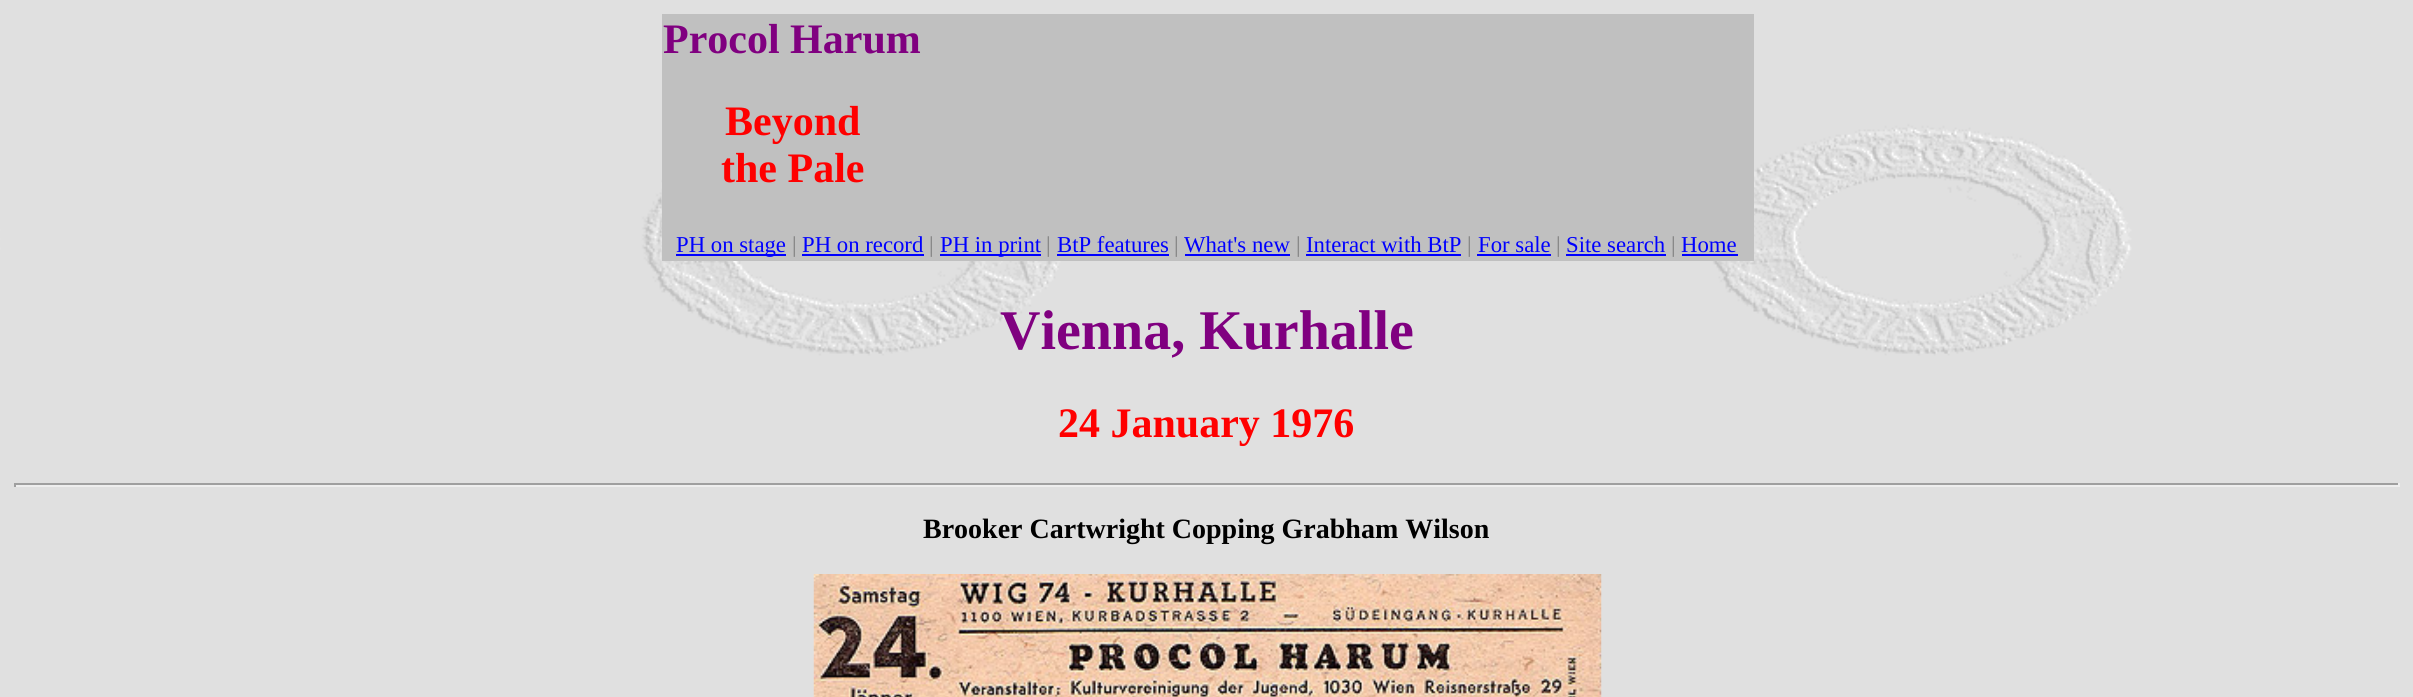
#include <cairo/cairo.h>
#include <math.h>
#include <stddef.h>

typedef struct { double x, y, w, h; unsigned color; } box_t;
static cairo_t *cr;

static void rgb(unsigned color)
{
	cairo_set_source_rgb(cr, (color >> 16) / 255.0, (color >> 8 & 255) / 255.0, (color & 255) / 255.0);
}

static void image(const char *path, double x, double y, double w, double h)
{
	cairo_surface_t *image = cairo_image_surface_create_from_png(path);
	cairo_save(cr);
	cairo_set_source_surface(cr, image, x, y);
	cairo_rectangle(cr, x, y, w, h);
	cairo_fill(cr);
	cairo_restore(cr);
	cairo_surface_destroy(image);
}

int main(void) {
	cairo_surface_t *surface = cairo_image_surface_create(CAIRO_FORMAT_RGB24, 2413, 697);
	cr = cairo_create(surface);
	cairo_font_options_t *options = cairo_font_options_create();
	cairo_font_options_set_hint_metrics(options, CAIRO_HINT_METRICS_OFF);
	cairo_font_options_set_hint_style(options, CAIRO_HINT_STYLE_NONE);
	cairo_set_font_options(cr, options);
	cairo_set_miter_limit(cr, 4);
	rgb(0xffffff);
	cairo_paint(cr);
	image("img/1.png", 0, 0, 2413, 697);
	{
		static const box_t items[] = {
			{662, 14, 1092, 247, 0xc0c0c0},
			{676, 254, 110, 2, 0x0000ff},
			{802, 254, 122, 2, 0x0000ff},
			{940, 254, 101, 2, 0x0000ff},
			{1057, 254, 112, 2, 0x0000ff},
			{1185, 254, 105, 2, 0x0000ff},
			{1306, 254, 155, 2, 0x0000ff},
			{1477, 254, 74, 2, 0x0000ff},
			{1566, 254, 100, 2, 0x0000ff},
			{1682, 254, 56, 2, 0x0000ff},
			{14, 483, 2385, 2, 0x9f9f9f},
			{2398, 483, 2, 4, 0xeeeeee},
			{14, 485, 2385, 2, 0xeeeeee},
			{14, 483, 2, 4, 0x9f9f9f},
		};
		for (size_t i = 0; i < sizeof items / sizeof *items; i++) {
			rgb(items[i].color);
			cairo_rectangle(cr, items[i].x, items[i].y, items[i].w, items[i].h);
			cairo_fill(cr);
		}
	}
	image("img/2.png", 813, 574, 789, 123);
	cairo_select_font_face(cr, "Liberation Serif", CAIRO_FONT_SLANT_NORMAL, CAIRO_FONT_WEIGHT_BOLD);
	cairo_set_font_size(cr, 42);
	rgb(0x800080);
	cairo_move_to(cr, 663, 53);
	cairo_show_text(cr, "Procol Harum");
	rgb(0xff0000);
	cairo_move_to(cr, 725, 135);
	cairo_show_text(cr, "Beyond");
	cairo_move_to(cr, 721, 182);
	cairo_show_text(cr, "the Pale");
	cairo_select_font_face(cr, "Liberation Serif", CAIRO_FONT_SLANT_NORMAL, CAIRO_FONT_WEIGHT_NORMAL);
	cairo_set_font_size(cr, 22.75);
	rgb(0x0000ff);
	cairo_move_to(cr, 676, 252);
	cairo_show_text(cr, "PH on stage");
	rgb(0x808080);
	cairo_move_to(cr, 792, 252);
	cairo_show_text(cr, "|");
	rgb(0x0000ff);
	cairo_move_to(cr, 802, 252);
	cairo_show_text(cr, "PH on record");
	rgb(0x808080);
	cairo_move_to(cr, 929, 252);
	cairo_show_text(cr, "|");
	rgb(0x0000ff);
	cairo_move_to(cr, 940, 252);
	cairo_show_text(cr, "PH in print");
	rgb(0x808080);
	cairo_move_to(cr, 1046, 252);
	cairo_show_text(cr, "|");
	rgb(0x0000ff);
	cairo_move_to(cr, 1057, 252);
	cairo_show_text(cr, "BtP features");
	rgb(0x808080);
	cairo_move_to(cr, 1174, 252);
	cairo_show_text(cr, "|");
	rgb(0x0000ff);
	cairo_move_to(cr, 1184, 252);
	cairo_show_text(cr, "What's new");
	rgb(0x808080);
	cairo_move_to(cr, 1296, 252);
	cairo_show_text(cr, "|");
	rgb(0x0000ff);
	cairo_move_to(cr, 1306, 252);
	cairo_show_text(cr, "Interact with BtP");
	rgb(0x808080);
	cairo_move_to(cr, 1467, 252);
	cairo_show_text(cr, "|");
	rgb(0x0000ff);
	cairo_move_to(cr, 1478, 252);
	cairo_show_text(cr, "For sale");
	rgb(0x808080);
	cairo_move_to(cr, 1556, 252);
	cairo_show_text(cr, "|");
	rgb(0x0000ff);
	cairo_move_to(cr, 1566, 252);
	cairo_show_text(cr, "Site search");
	rgb(0x808080);
	cairo_move_to(cr, 1671, 252);
	cairo_show_text(cr, "|");
	rgb(0x0000ff);
	cairo_move_to(cr, 1681, 252);
	cairo_show_text(cr, "Home");
	cairo_select_font_face(cr, "Liberation Serif", CAIRO_FONT_SLANT_NORMAL, CAIRO_FONT_WEIGHT_BOLD);
	cairo_set_font_size(cr, 56);
	rgb(0x800080);
	cairo_move_to(cr, 1000, 349);
	cairo_show_text(cr, "Vienna, Kurhalle");
	cairo_set_font_size(cr, 42);
	rgb(0xff0000);
	cairo_move_to(cr, 1058, 437);
	cairo_show_text(cr, "24 January 1976");
	cairo_set_font_size(cr, 28);
	rgb(0x000000);
	cairo_move_to(cr, 923, 538);
	cairo_show_text(cr, "Brooker Cartwright Copping Grabham Wilson");
	cairo_surface_write_to_png(surface, "page.png");
	cairo_font_options_destroy(options);
	cairo_destroy(cr);
	cairo_surface_destroy(surface);
	return 0;
}
